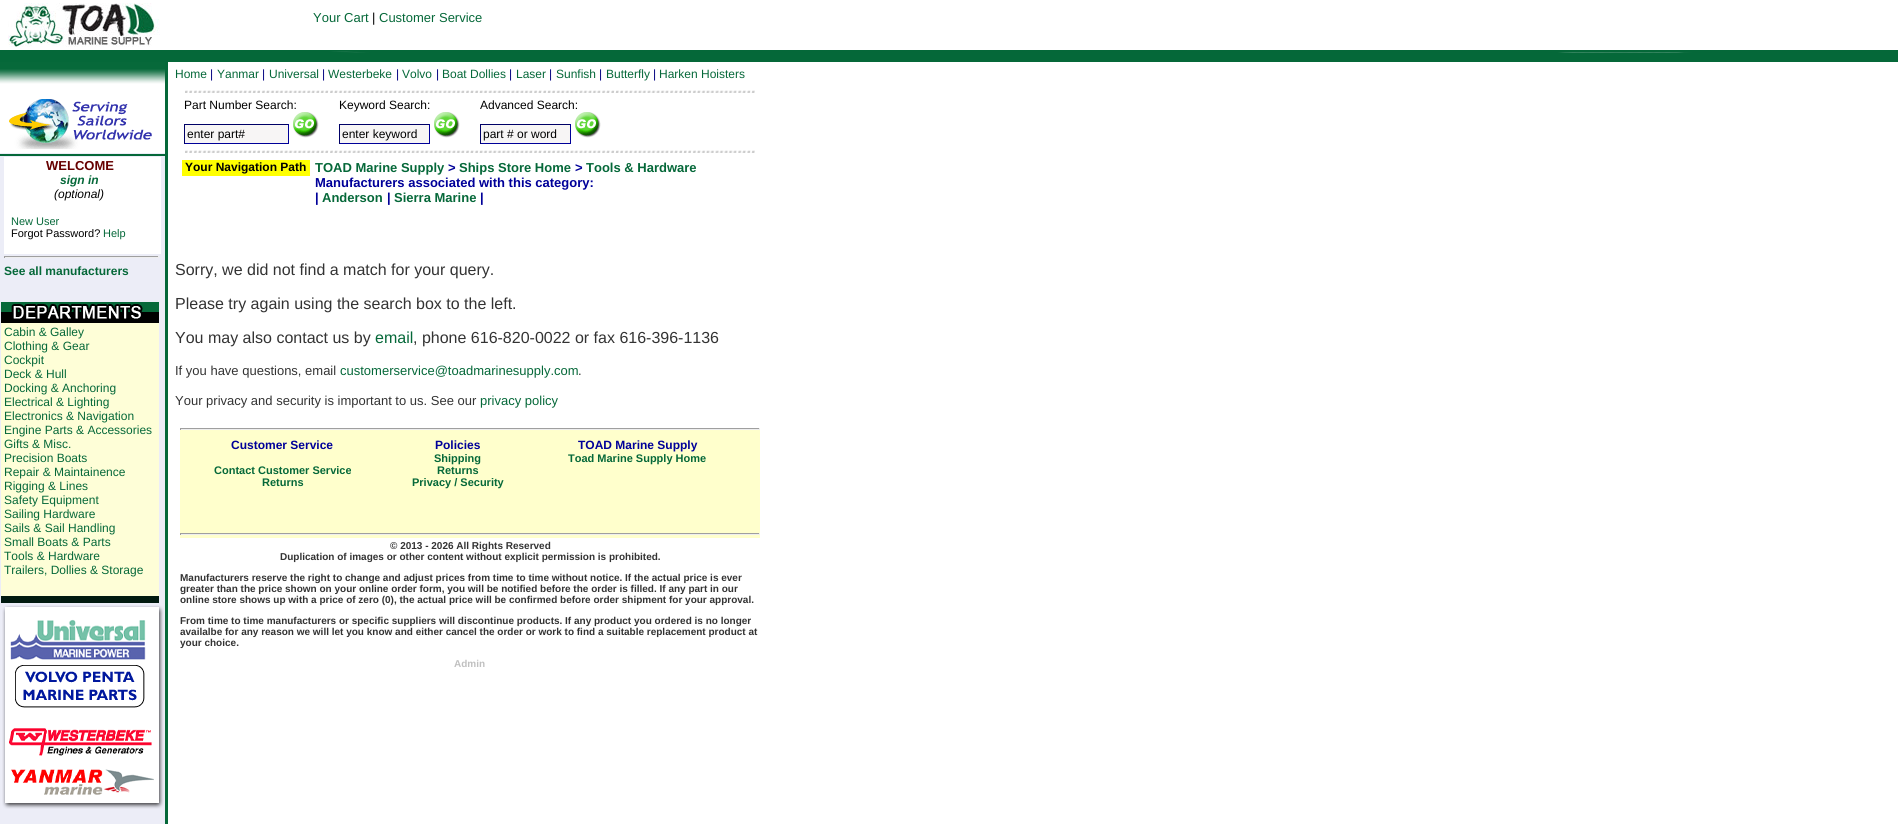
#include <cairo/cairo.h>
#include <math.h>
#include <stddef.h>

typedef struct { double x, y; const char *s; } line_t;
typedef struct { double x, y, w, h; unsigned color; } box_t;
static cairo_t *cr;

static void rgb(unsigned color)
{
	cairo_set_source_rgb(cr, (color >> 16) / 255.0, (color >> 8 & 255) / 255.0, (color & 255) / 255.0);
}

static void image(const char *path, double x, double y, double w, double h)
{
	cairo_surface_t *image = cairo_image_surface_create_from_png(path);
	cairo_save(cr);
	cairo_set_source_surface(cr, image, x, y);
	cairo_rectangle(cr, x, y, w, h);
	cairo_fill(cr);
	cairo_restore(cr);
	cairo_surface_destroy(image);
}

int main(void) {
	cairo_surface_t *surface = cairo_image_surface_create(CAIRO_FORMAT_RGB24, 1900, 824);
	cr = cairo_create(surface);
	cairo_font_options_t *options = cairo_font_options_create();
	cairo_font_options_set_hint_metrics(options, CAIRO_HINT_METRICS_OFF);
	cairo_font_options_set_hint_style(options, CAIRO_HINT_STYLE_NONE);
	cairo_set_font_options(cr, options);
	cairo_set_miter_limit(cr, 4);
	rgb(0xffffff);
	cairo_paint(cr);
	image("img/1.png", 8, 3, 152, 44);
	image("img/2.png", 0, 50, 1898, 3);
	rgb(0x056839);
	cairo_rectangle(cr, 0, 53, 1898, 9);
	cairo_fill(cr);
	image("img/3.png", 0, 62, 165, 22);
	cairo_rectangle(cr, 165, 62, 3, 762);
	cairo_fill(cr);
	image("img/4.png", 185, 90, 570, 3);
	image("img/4.png", 185, 150, 570, 3);
	{
		static const box_t items[] = {
			{0, 153, 165, 671, 0xecedf7},
			{0, 154, 167, 2, 0x056839},
			{4, 157, 157, 97, 0xffffff},
			{182, 160, 128, 16, 0xffff00},
			{4, 256, 155, 1, 0x9f9f9f},
			{158, 256, 1, 2, 0xeeeeee},
			{4, 257, 155, 1, 0xeeeeee},
			{4, 256, 1, 2, 0x9f9f9f},
		};
		for (size_t i = 0; i < sizeof items / sizeof *items; i++) {
			rgb(items[i].color);
			cairo_rectangle(cr, items[i].x, items[i].y, items[i].w, items[i].h);
			cairo_fill(cr);
		}
	}
	image("img/5.png", 1, 302, 158, 301);
	image("img/6.png", 2, 605, 162, 204);
	image("img/7.png", 10, 619, 136, 41);
	image("img/8.png", 15, 665, 130, 43);
	image("img/9.png", 9, 728, 143, 28);
	image("img/10.png", 11, 769, 143, 26);
	image("img/11.png", 9, 99, 143, 50);
	{
		static const box_t items[] = {
			{185, 125, 103, 18, 0xf7f5f5},
			{184, 124, 105, 1, 0x000066},
			{288, 124, 1, 20, 0x000099},
			{184, 143, 105, 1, 0x000099},
			{184, 124, 1, 20, 0x000066},
		};
		for (size_t i = 0; i < sizeof items / sizeof *items; i++) {
			rgb(items[i].color);
			cairo_rectangle(cr, items[i].x, items[i].y, items[i].w, items[i].h);
			cairo_fill(cr);
		}
	}
	image("img/12.png", 293, 112, 26, 26);
	{
		static const box_t items[] = {
			{340, 125, 89, 18, 0xf7f5f5},
			{339, 124, 91, 1, 0x000066},
			{429, 124, 1, 20, 0x000099},
			{339, 143, 91, 1, 0x000099},
			{339, 124, 1, 20, 0x000066},
		};
		for (size_t i = 0; i < sizeof items / sizeof *items; i++) {
			rgb(items[i].color);
			cairo_rectangle(cr, items[i].x, items[i].y, items[i].w, items[i].h);
			cairo_fill(cr);
		}
	}
	image("img/12.png", 434, 112, 26, 26);
	{
		static const box_t items[] = {
			{481, 125, 89, 18, 0xf7f5f5},
			{480, 124, 91, 1, 0x000066},
			{570, 124, 1, 20, 0x000099},
			{480, 143, 91, 1, 0x000099},
			{480, 124, 1, 20, 0x000066},
		};
		for (size_t i = 0; i < sizeof items / sizeof *items; i++) {
			rgb(items[i].color);
			cairo_rectangle(cr, items[i].x, items[i].y, items[i].w, items[i].h);
			cairo_fill(cr);
		}
	}
	image("img/12.png", 575, 112, 26, 26);
	{
		static const box_t items[] = {
			{180, 430, 580, 108, 0xffffcc},
			{180, 428, 580, 1, 0x9f9f9f},
			{759, 428, 1, 2, 0xeeeeee},
			{180, 429, 580, 1, 0xeeeeee},
			{180, 428, 1, 2, 0x9f9f9f},
			{180, 533, 580, 1, 0x9f9f9f},
			{759, 533, 1, 2, 0xeeeeee},
			{180, 534, 580, 1, 0xeeeeee},
			{180, 533, 1, 2, 0x9f9f9f},
		};
		for (size_t i = 0; i < sizeof items / sizeof *items; i++) {
			rgb(items[i].color);
			cairo_rectangle(cr, items[i].x, items[i].y, items[i].w, items[i].h);
			cairo_fill(cr);
		}
	}
	cairo_select_font_face(cr, "Liberation Sans", CAIRO_FONT_SLANT_NORMAL, CAIRO_FONT_WEIGHT_NORMAL);
	cairo_set_font_size(cr, 13);
	rgb(0x056839);
	cairo_move_to(cr, 313, 22);
	cairo_show_text(cr, "Your Cart");
	rgb(0x000000);
	cairo_move_to(cr, 372, 22);
	cairo_show_text(cr, "|");
	rgb(0x056839);
	cairo_move_to(cr, 379, 22);
	cairo_show_text(cr, "Customer Service");
	cairo_set_font_size(cr, 12);
	cairo_move_to(cr, 175, 78);
	cairo_show_text(cr, "Home");
	rgb(0x000080);
	cairo_move_to(cr, 210, 78);
	cairo_show_text(cr, "|");
	rgb(0x056839);
	cairo_move_to(cr, 217, 78);
	cairo_show_text(cr, "Yanmar");
	rgb(0x000080);
	cairo_move_to(cr, 262, 78);
	cairo_show_text(cr, "|");
	rgb(0x056839);
	cairo_move_to(cr, 269, 78);
	cairo_show_text(cr, "Universal");
	rgb(0x000080);
	cairo_move_to(cr, 322, 78);
	cairo_show_text(cr, "|");
	rgb(0x056839);
	cairo_move_to(cr, 328, 78);
	cairo_show_text(cr, "Westerbeke");
	rgb(0x000080);
	cairo_move_to(cr, 396, 78);
	cairo_show_text(cr, "|");
	rgb(0x056839);
	cairo_move_to(cr, 402, 78);
	cairo_show_text(cr, "Volvo");
	rgb(0x000080);
	cairo_move_to(cr, 436, 78);
	cairo_show_text(cr, "|");
	rgb(0x056839);
	cairo_move_to(cr, 442, 78);
	cairo_show_text(cr, "Boat Dollies");
	rgb(0x000080);
	cairo_move_to(cr, 509, 78);
	cairo_show_text(cr, "|");
	rgb(0x056839);
	cairo_move_to(cr, 516, 78);
	cairo_show_text(cr, "Laser");
	rgb(0x000080);
	cairo_move_to(cr, 549, 78);
	cairo_show_text(cr, "|");
	rgb(0x056839);
	cairo_move_to(cr, 556, 78);
	cairo_show_text(cr, "Sunfish");
	rgb(0x000080);
	cairo_move_to(cr, 599, 78);
	cairo_show_text(cr, "|");
	rgb(0x056839);
	cairo_move_to(cr, 606, 78);
	cairo_show_text(cr, "Butterfly");
	rgb(0x000080);
	cairo_move_to(cr, 653, 78);
	cairo_show_text(cr, "|");
	rgb(0x056839);
	cairo_move_to(cr, 659, 78);
	cairo_show_text(cr, "Harken Hoisters");
	cairo_select_font_face(cr, "Liberation Sans", CAIRO_FONT_SLANT_NORMAL, CAIRO_FONT_WEIGHT_BOLD);
	cairo_set_font_size(cr, 13);
	rgb(0x660000);
	cairo_move_to(cr, 46, 170);
	cairo_show_text(cr, "WELCOME");
	cairo_select_font_face(cr, "Liberation Sans", CAIRO_FONT_SLANT_ITALIC, CAIRO_FONT_WEIGHT_BOLD);
	cairo_set_font_size(cr, 12);
	rgb(0x056839);
	cairo_move_to(cr, 60, 184);
	cairo_show_text(cr, "sign in");
	cairo_select_font_face(cr, "Liberation Sans", CAIRO_FONT_SLANT_ITALIC, CAIRO_FONT_WEIGHT_NORMAL);
	rgb(0x000000);
	cairo_move_to(cr, 54, 198);
	cairo_show_text(cr, "(optional)");
	cairo_select_font_face(cr, "Liberation Sans", CAIRO_FONT_SLANT_NORMAL, CAIRO_FONT_WEIGHT_NORMAL);
	cairo_set_font_size(cr, 11);
	rgb(0x056839);
	cairo_move_to(cr, 11, 225);
	cairo_show_text(cr, "New User");
	rgb(0x000000);
	cairo_move_to(cr, 11, 237);
	cairo_show_text(cr, "Forgot Password?");
	rgb(0x056839);
	cairo_move_to(cr, 103, 237);
	cairo_show_text(cr, "Help");
	cairo_select_font_face(cr, "Liberation Sans", CAIRO_FONT_SLANT_NORMAL, CAIRO_FONT_WEIGHT_BOLD);
	cairo_set_font_size(cr, 12);
	rgb(0x000000);
	cairo_move_to(cr, 185, 171);
	cairo_show_text(cr, "Your Navigation Path");
	cairo_set_font_size(cr, 13);
	rgb(0x056839);
	cairo_move_to(cr, 315, 172);
	cairo_show_text(cr, "TOAD Marine Supply");
	rgb(0x000099);
	cairo_move_to(cr, 448, 172);
	cairo_show_text(cr, ">");
	rgb(0x056839);
	cairo_move_to(cr, 459, 172);
	cairo_show_text(cr, "Ships Store Home");
	rgb(0x000099);
	cairo_move_to(cr, 575, 172);
	cairo_show_text(cr, ">");
	rgb(0x056839);
	cairo_move_to(cr, 586, 172);
	cairo_show_text(cr, "Tools & Hardware");
	rgb(0x000099);
	cairo_move_to(cr, 315, 187);
	cairo_show_text(cr, "Manufacturers associated with this category:");
	cairo_move_to(cr, 315, 202);
	cairo_show_text(cr, "|");
	rgb(0x056839);
	cairo_move_to(cr, 322, 202);
	cairo_show_text(cr, "Anderson");
	rgb(0x000099);
	cairo_move_to(cr, 387, 202);
	cairo_show_text(cr, "|");
	rgb(0x056839);
	cairo_move_to(cr, 394, 202);
	cairo_show_text(cr, "Sierra Marine");
	rgb(0x000099);
	cairo_move_to(cr, 480, 202);
	cairo_show_text(cr, "|");
	cairo_set_font_size(cr, 12);
	rgb(0x056839);
	cairo_move_to(cr, 4, 275);
	cairo_show_text(cr, "See all manufacturers");
	cairo_select_font_face(cr, "Liberation Sans", CAIRO_FONT_SLANT_NORMAL, CAIRO_FONT_WEIGHT_NORMAL);
	{
		static const line_t items[] = {
			{4, 336, "Cabin & Galley"},
			{4, 350, "Clothing & Gear"},
			{4, 364, "Cockpit"},
			{4, 378, "Deck & Hull"},
			{4, 392, "Docking & Anchoring"},
			{4, 406, "Electrical & Lighting"},
			{4, 420, "Electronics & Navigation"},
			{4, 434, "Engine Parts & Accessories"},
			{4, 448, "Gifts & Misc."},
			{4, 462, "Precision Boats"},
			{4, 476, "Repair & Maintainence"},
			{4, 490, "Rigging & Lines"},
			{4, 504, "Safety Equipment"},
			{4, 518, "Sailing Hardware"},
			{4, 532, "Sails & Sail Handling"},
			{4, 546, "Small Boats & Parts"},
			{4, 560, "Tools & Hardware"},
			{4, 574, "Trailers, Dollies & Storage"},
		};
		for (size_t i = 0; i < sizeof items / sizeof *items; i++) {
			cairo_move_to(cr, items[i].x, items[i].y);
			cairo_show_text(cr, items[i].s);
		}
	}
	rgb(0x000000);
	{
		static const line_t items[] = {
			{184, 109, "Part Number Search:"},
			{187, 138, "enter part#"},
			{339, 109, "Keyword Search:"},
			{342, 138, "enter keyword"},
			{480, 109, "Advanced Search:"},
			{483, 138, "part # or word"},
		};
		for (size_t i = 0; i < sizeof items / sizeof *items; i++) {
			cairo_move_to(cr, items[i].x, items[i].y);
			cairo_show_text(cr, items[i].s);
		}
	}
	cairo_set_font_size(cr, 16);
	rgb(0x333333);
	{
		static const line_t items[] = {
			{175, 275, "Sorry, we did not find a match for your query."},
			{175, 309, "Please try again using the search box to the left."},
			{175, 343, "You may also contact us by"},
		};
		for (size_t i = 0; i < sizeof items / sizeof *items; i++) {
			cairo_move_to(cr, items[i].x, items[i].y);
			cairo_show_text(cr, items[i].s);
		}
	}
	rgb(0x056839);
	cairo_move_to(cr, 375, 343);
	cairo_show_text(cr, "email");
	rgb(0x333333);
	cairo_move_to(cr, 413, 343);
	cairo_show_text(cr, ", phone 616-820-0022 or fax 616-396-1136");
	cairo_set_font_size(cr, 13);
	cairo_move_to(cr, 175, 375);
	cairo_show_text(cr, "If you have questions, email");
	rgb(0x056839);
	cairo_move_to(cr, 340, 375);
	cairo_show_text(cr, "customerservice@toadmarinesupply.com");
	rgb(0x333333);
	cairo_move_to(cr, 578, 375);
	cairo_show_text(cr, ".");
	cairo_move_to(cr, 175, 405);
	cairo_show_text(cr, "Your privacy and security is important to us. See our");
	rgb(0x056839);
	cairo_move_to(cr, 480, 405);
	cairo_show_text(cr, "privacy policy");
	cairo_select_font_face(cr, "Liberation Sans", CAIRO_FONT_SLANT_NORMAL, CAIRO_FONT_WEIGHT_BOLD);
	cairo_set_font_size(cr, 12);
	rgb(0x000099);
	cairo_move_to(cr, 435, 449);
	cairo_show_text(cr, "Policies");
	cairo_set_font_size(cr, 11);
	rgb(0x056839);
	{
		static const line_t items[] = {
			{434, 462, "Shipping"},
			{437, 474, "Returns"},
			{412, 486, "Privacy / Security"},
		};
		for (size_t i = 0; i < sizeof items / sizeof *items; i++) {
			cairo_move_to(cr, items[i].x, items[i].y);
			cairo_show_text(cr, items[i].s);
		}
	}
	cairo_set_font_size(cr, 12);
	rgb(0x000099);
	cairo_move_to(cr, 578, 449);
	cairo_show_text(cr, "TOAD Marine Supply");
	cairo_set_font_size(cr, 11);
	rgb(0x056839);
	cairo_move_to(cr, 568, 462);
	cairo_show_text(cr, "Toad Marine Supply Home");
	cairo_set_font_size(cr, 10);
	rgb(0x333333);
	{
		static const line_t items[] = {
			{390, 549, "© 2013 - 2026 All Rights Reserved"},
			{280, 560, "Duplication of images or other content without explicit permission is prohibited."},
			{180, 581, "Manufacturers reserve the right to change and adjust prices from time to time without notice. If the actual price is ever"},
			{180, 592, "greater than the price shown on your online order form, you will be notified before the order is filled. If any part in our"},
			{180, 603, "online store shows up with a price of zero (0), the actual price will be confirmed before order shipment for your approval."},
			{180, 624, "From time to time manufacturers or specific suppliers will discontinue products. If any product you ordered is no longer"},
			{180, 635, "availalbe for any reason we will let you know and either cancel the order or work to find a suitable replacement product at"},
			{180, 646, "your choice."},
		};
		for (size_t i = 0; i < sizeof items / sizeof *items; i++) {
			cairo_move_to(cr, items[i].x, items[i].y);
			cairo_show_text(cr, items[i].s);
		}
	}
	rgb(0xc0c0c0);
	cairo_move_to(cr, 454, 667);
	cairo_show_text(cr, "Admin");
	cairo_set_font_size(cr, 12);
	rgb(0x000099);
	cairo_move_to(cr, 231, 449);
	cairo_show_text(cr, "Customer Service");
	cairo_set_font_size(cr, 11);
	rgb(0x056839);
	cairo_move_to(cr, 214, 474);
	cairo_show_text(cr, "Contact Customer Service");
	cairo_move_to(cr, 262, 486);
	cairo_show_text(cr, "Returns");
	cairo_surface_write_to_png(surface, "page.png");
	cairo_font_options_destroy(options);
	cairo_destroy(cr);
	cairo_surface_destroy(surface);
	return 0;
}
